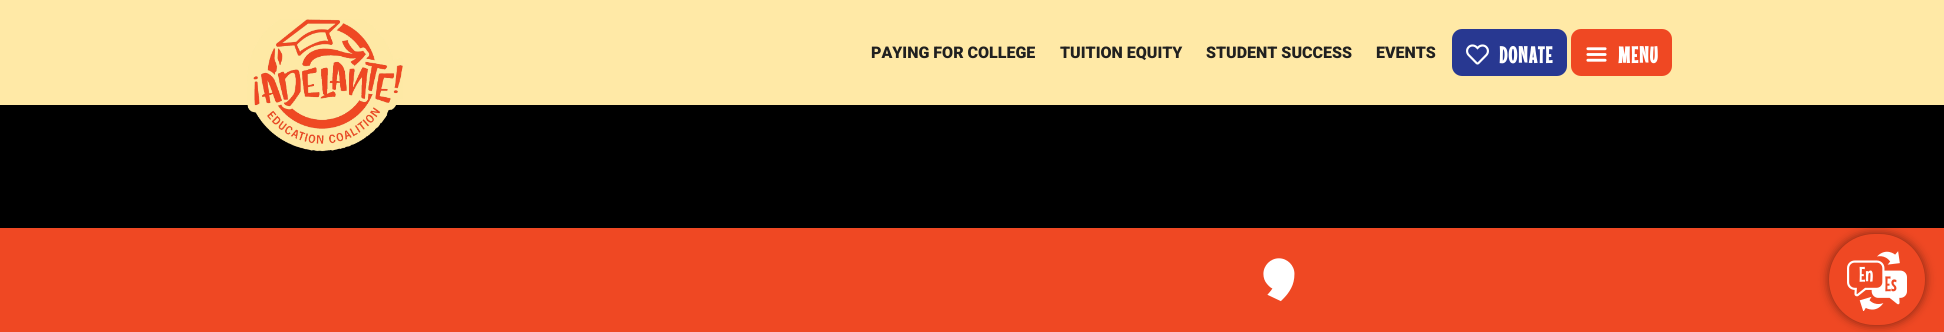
#include <cairo/cairo.h>
#include <math.h>
#include <stddef.h>

typedef struct { double x, y; const char *s; } line_t;
static cairo_t *cr;

static void rgb(unsigned color)
{
	cairo_set_source_rgb(cr, (color >> 16) / 255.0, (color >> 8 & 255) / 255.0, (color & 255) / 255.0);
}

static void tracked(double x, double y, const char *s, double letter, double word)
{
	cairo_move_to(cr, x, y);
	while (*s) {
		char ch[5] = {0};
		int n = 0;
		do ch[n++] = *s++; while ((*s & 0xC0) == 0x80);
		cairo_show_text(cr, ch);
		cairo_rel_move_to(cr, letter + word * (*ch == ' '), 0);
	}
}

static void rrect(double x, double y, double w, double h, double r)
{
	cairo_new_sub_path(cr);
	cairo_arc(cr, x + w - r, y + h - r, r, 0, M_PI / 2);
	cairo_arc(cr, x + r, y + h - r, r, M_PI / 2, M_PI);
	cairo_arc(cr, x + r, y + r, r, M_PI, 1.5 * M_PI);
	cairo_arc(cr, x + w - r, y + r, r, 1.5 * M_PI, 2 * M_PI);
	cairo_close_path(cr);
}

static void soft_shadow(double x, double y, double w, double h, double r, double blur, double alpha)
{
	cairo_push_group_with_content(cr, CAIRO_CONTENT_ALPHA);
	cairo_set_operator(cr, CAIRO_OPERATOR_SOURCE);
	for (int i = 15; i >= -15 && fmin(w, h) + blur * i / 3 > 0; i -= 2) {
		double e = blur * i / 6;
		cairo_set_source_rgba(cr, 0, 0, 0, alpha * erfc((i - 1) / 8.5) / 2);
		rrect(x - e, y - e, w + 2 * e, h + 2 * e, fmax(0, fmin(r + e + blur * .6, fmin(w, h) / 2 + e)));
		cairo_fill(cr);
	}
	cairo_pattern_t *soft = cairo_pop_group(cr);
	cairo_mask(cr, soft);
	cairo_pattern_destroy(soft);
}

static void image(const char *path, double x, double y, double w, double h)
{
	cairo_surface_t *image = cairo_image_surface_create_from_png(path);
	cairo_save(cr);
	cairo_set_source_surface(cr, image, x, y);
	cairo_rectangle(cr, x, y, w, h);
	cairo_fill(cr);
	cairo_restore(cr);
	cairo_surface_destroy(image);
}

int main(void) {
	cairo_surface_t *surface = cairo_image_surface_create(CAIRO_FORMAT_RGB24, 1944, 332);
	cr = cairo_create(surface);
	cairo_font_options_t *options = cairo_font_options_create();
	cairo_font_options_set_hint_metrics(options, CAIRO_HINT_METRICS_OFF);
	cairo_font_options_set_hint_style(options, CAIRO_HINT_STYLE_NONE);
	cairo_set_font_options(cr, options);
	cairo_set_miter_limit(cr, 4);
	rgb(0x000000);
	cairo_paint(cr);
	rgb(0xffe9a6);
	cairo_rectangle(cr, 0, 0, 1944, 105);
	cairo_fill(cr);
	image("img/1.png", 247, 19, 156, 133);
	rgb(0x283891);
	rrect(1452, 29, 115, 47, 10);
	cairo_fill(cr);
	image("img/2.png", 1466, 44, 23, 21);
	rgb(0xef4823);
	rrect(1571, 29, 101, 47, 10);
	cairo_fill(cr);
	image("img/3.png", 1586, 47, 21, 15);
	cairo_rectangle(cr, 0, 228, 1944, 104);
	cairo_fill(cr);
	rgb(0x000000);
	soft_shadow(1829, 234, 96, 91, 45.5, 5, 0.5);
	rgb(0xef4823);
	rrect(1829, 234, 96, 91, 45.5);
	cairo_fill(cr);
	image("img/4.png", 1847, 251, 60, 60);
	cairo_select_font_face(cr, "Roboto Black", CAIRO_FONT_SLANT_NORMAL, CAIRO_FONT_WEIGHT_NORMAL);
	cairo_set_font_size(cr, 16);
	rgb(0x202020);
	{
		static const line_t items[] = {
			{871, 58, "PAYING FOR COLLEGE"},
			{1060, 58, "TUITION EQUITY"},
			{1206, 58, "STUDENT SUCCESS"},
			{1376, 58, "EVENTS"},
		};
		for (size_t i = 0; i < sizeof items / sizeof *items; i++) {
			cairo_move_to(cr, items[i].x, items[i].y);
			cairo_show_text(cr, items[i].s);
		}
	}
	cairo_select_font_face(cr, "Mouse Memoirs", CAIRO_FONT_SLANT_NORMAL, CAIRO_FONT_WEIGHT_BOLD);
	cairo_set_font_size(cr, 23);
	rgb(0xffffff);
	tracked(1499, 63, "DONATE", 1, 0);
	tracked(1618, 63, "MENU", 1, 0);
	cairo_set_font_size(cr, 214);
	tracked(1261, 412, "’", 1, 0);
	cairo_surface_write_to_png(surface, "page.png");
	cairo_font_options_destroy(options);
	cairo_destroy(cr);
	cairo_surface_destroy(surface);
	return 0;
}
